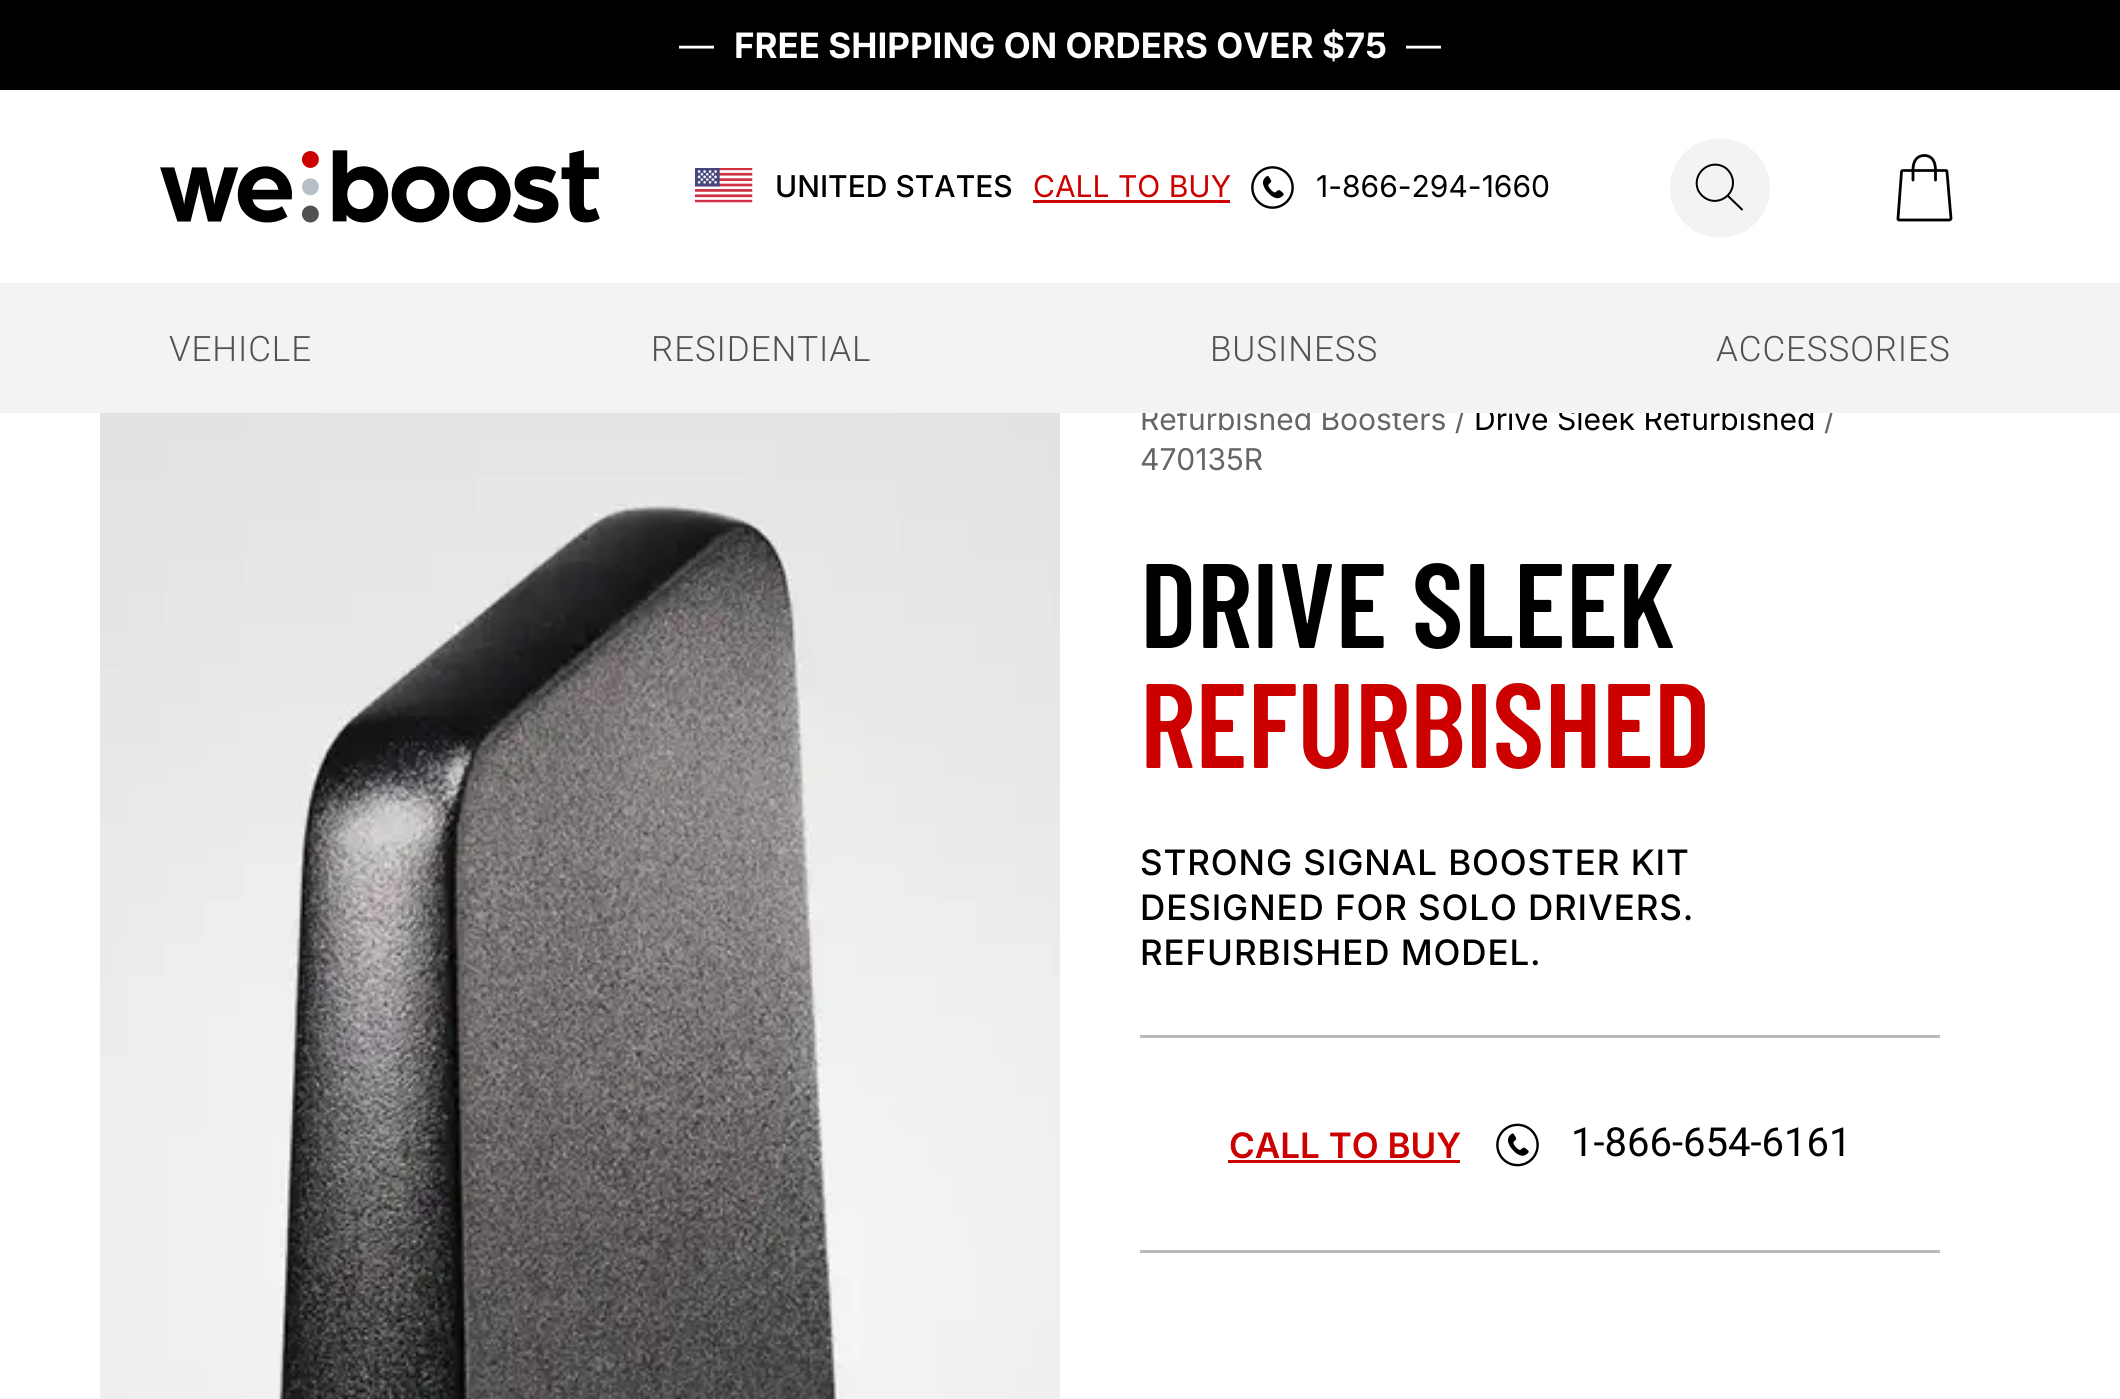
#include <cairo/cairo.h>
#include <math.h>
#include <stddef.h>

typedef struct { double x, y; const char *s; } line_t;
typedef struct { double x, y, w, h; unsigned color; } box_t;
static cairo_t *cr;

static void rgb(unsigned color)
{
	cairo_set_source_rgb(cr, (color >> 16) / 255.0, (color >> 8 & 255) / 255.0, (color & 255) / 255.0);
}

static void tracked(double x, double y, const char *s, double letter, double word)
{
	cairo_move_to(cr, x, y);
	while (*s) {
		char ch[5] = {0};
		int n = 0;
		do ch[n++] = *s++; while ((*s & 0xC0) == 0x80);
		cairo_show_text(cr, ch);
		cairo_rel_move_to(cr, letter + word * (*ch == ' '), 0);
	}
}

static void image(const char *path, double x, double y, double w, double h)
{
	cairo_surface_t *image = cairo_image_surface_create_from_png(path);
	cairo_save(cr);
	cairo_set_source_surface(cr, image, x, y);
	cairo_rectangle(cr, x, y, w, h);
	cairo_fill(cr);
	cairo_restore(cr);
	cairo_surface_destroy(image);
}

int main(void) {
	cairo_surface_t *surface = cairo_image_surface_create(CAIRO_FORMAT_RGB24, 2120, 1399);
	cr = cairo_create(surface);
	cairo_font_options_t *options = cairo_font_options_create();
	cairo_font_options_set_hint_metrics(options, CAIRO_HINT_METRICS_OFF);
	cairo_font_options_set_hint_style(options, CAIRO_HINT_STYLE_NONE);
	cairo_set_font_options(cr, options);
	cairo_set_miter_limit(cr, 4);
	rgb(0xffffff);
	cairo_paint(cr);
	rgb(0x000000);
	cairo_rectangle(cr, 0, 0, 2120, 90);
	cairo_fill(cr);
	image("img/1.png", 160, 150, 440, 73);
	image("img/2.png", 695, 168, 58, 35);
	rgb(0xcd0000);
	cairo_rectangle(cr, 1033, 200, 197, 3);
	cairo_fill(cr);
	image("img/3.png", 1251, 166, 43, 43);
	rgb(0xf3f3f4);
	cairo_arc(cr, 1720, 188, 50, 0, 2 * M_PI);
	cairo_fill(cr);
	cairo_new_path(cr);
	cairo_move_to(cr, 1698, 190);
	cairo_curve_to(cr, 1699.5, 193, 1702, 196, 1705, 198);
	cairo_curve_to(cr, 1720, 207.5, 1738.5, 192, 1731.5, 175.5);
	cairo_curve_to(cr, 1730, 172.5, 1728, 169.5, 1725, 167.5);
	cairo_curve_to(cr, 1710, 158, 1691.5, 173.5, 1698, 190);
	cairo_close_path(cr);
	cairo_move_to(cr, 1727.5, 195.5);
	cairo_line_to(cr, 1742, 209.5);
	rgb(0x000000);
	cairo_set_line_cap(cr, CAIRO_LINE_CAP_ROUND);
	cairo_set_line_join(cr, CAIRO_LINE_JOIN_ROUND);
	cairo_stroke(cr);
	cairo_new_path(cr);
	cairo_move_to(cr, 1946, 170.5);
	cairo_line_to(cr, 1903, 170.5);
	cairo_curve_to(cr, 1902, 170.5, 1901.5, 171, 1901.5, 172);
	cairo_line_to(cr, 1898, 218.5);
	cairo_curve_to(cr, 1897.5, 219, 1898.5, 220, 1899, 220);
	cairo_line_to(cr, 1949.5, 220);
	cairo_curve_to(cr, 1950, 220, 1951, 219, 1951, 218.5);
	cairo_line_to(cr, 1947, 172);
	cairo_curve_to(cr, 1947, 171, 1946.5, 170.5, 1946, 170.5);
	cairo_close_path(cr);
	cairo_set_line_width(cr, 2.8);
	cairo_set_line_cap(cr, CAIRO_LINE_CAP_BUTT);
	cairo_set_line_join(cr, CAIRO_LINE_JOIN_MITER);
	cairo_stroke(cr);
	cairo_new_path(cr);
	cairo_move_to(cr, 1913, 180);
	cairo_line_to(cr, 1913, 170.5);
	cairo_curve_to(cr, 1913, 157, 1920.5, 155.5, 1924.5, 155.5);
	cairo_curve_to(cr, 1928, 155.5, 1935.5, 157, 1935.5, 170.5);
	cairo_line_to(cr, 1935.5, 180);
	cairo_set_line_cap(cr, CAIRO_LINE_CAP_ROUND);
	cairo_stroke(cr);
	image("img/4.png", 100, 413, 960, 986);
	{
		static const box_t items[] = {
			{1140, 1035, 800, 3, 0xb9b9b9},
			{1140, 1250, 800, 3, 0xb9b9b9},
			{1228, 1160, 232, 3, 0xcd0000},
		};
		for (size_t i = 0; i < sizeof items / sizeof *items; i++) {
			rgb(items[i].color);
			cairo_rectangle(cr, items[i].x, items[i].y, items[i].w, items[i].h);
			cairo_fill(cr);
		}
	}
	image("img/5.png", 1496, 1123, 43, 44);
	cairo_select_font_face(cr, "Inter", CAIRO_FONT_SLANT_NORMAL, CAIRO_FONT_WEIGHT_NORMAL);
	cairo_set_font_size(cr, 35);
	rgb(0xffffff);
	cairo_move_to(cr, 679, 58);
	cairo_show_text(cr, "—");
	cairo_select_font_face(cr, "Inter", CAIRO_FONT_SLANT_NORMAL, CAIRO_FONT_WEIGHT_BOLD);
	cairo_move_to(cr, 734, 58);
	cairo_show_text(cr, "FREE SHIPPING ON ORDERS OVER $75");
	cairo_select_font_face(cr, "Inter", CAIRO_FONT_SLANT_NORMAL, CAIRO_FONT_WEIGHT_NORMAL);
	cairo_move_to(cr, 1406, 58);
	cairo_show_text(cr, "—");
	cairo_select_font_face(cr, "Inter Medium", CAIRO_FONT_SLANT_NORMAL, CAIRO_FONT_WEIGHT_NORMAL);
	cairo_set_font_size(cr, 30);
	rgb(0x000000);
	cairo_move_to(cr, 775, 197);
	cairo_show_text(cr, "UNITED STATES");
	cairo_select_font_face(cr, "Inter", CAIRO_FONT_SLANT_NORMAL, CAIRO_FONT_WEIGHT_NORMAL);
	rgb(0xcd0000);
	cairo_move_to(cr, 1033, 197);
	cairo_show_text(cr, "CALL TO BUY");
	rgb(0x000000);
	cairo_move_to(cr, 1316, 197);
	cairo_show_text(cr, "1-866-294-1660");
	rgb(0x666666);
	cairo_move_to(cr, 1140, 430);
	cairo_show_text(cr, "Refurbished Boosters /");
	rgb(0x000000);
	cairo_move_to(cr, 1474, 430);
	cairo_show_text(cr, "Drive Sleek Refurbished");
	rgb(0x666666);
	cairo_move_to(cr, 1824, 430);
	cairo_show_text(cr, "/");
	rgb(0xf3f3f4);
	cairo_rectangle(cr, 0, 283, 2120, 130);
	cairo_fill(cr);
	cairo_select_font_face(cr, "Roboto Light", CAIRO_FONT_SLANT_NORMAL, CAIRO_FONT_WEIGHT_NORMAL);
	cairo_set_font_size(cr, 35);
	rgb(0x515151);
	{
		static const line_t items[] = {
			{1210, 361, "BUSINESS"},
			{651, 361, "RESIDENTIAL"},
			{169, 361, "VEHICLE"},
			{1716, 361, "ACCESSORIES"},
		};
		for (size_t i = 0; i < sizeof items / sizeof *items; i++) {
			tracked(items[i].x, items[i].y, items[i].s, 0.9, 0);
		}
	}
	cairo_select_font_face(cr, "Inter", CAIRO_FONT_SLANT_NORMAL, CAIRO_FONT_WEIGHT_NORMAL);
	cairo_set_font_size(cr, 30);
	rgb(0x666666);
	cairo_move_to(cr, 1140, 470);
	cairo_show_text(cr, "470135R");
	cairo_select_font_face(cr, "Barlow Condensed SemiBold", CAIRO_FONT_SLANT_NORMAL, CAIRO_FONT_WEIGHT_NORMAL);
	cairo_set_font_size(cr, 120);
	rgb(0x000000);
	cairo_move_to(cr, 1140, 648);
	cairo_show_text(cr, "DRIVE SLEEK");
	rgb(0xcd0000);
	cairo_move_to(cr, 1140, 768);
	cairo_show_text(cr, "REFURBISHED");
	cairo_select_font_face(cr, "Inter Medium", CAIRO_FONT_SLANT_NORMAL, CAIRO_FONT_WEIGHT_NORMAL);
	cairo_set_font_size(cr, 35);
	rgb(0x000000);
	{
		static const line_t items[] = {
			{1140, 875, "STRONG SIGNAL BOOSTER KIT"},
			{1140, 920, "DESIGNED FOR SOLO DRIVERS."},
			{1140, 965, "REFURBISHED MODEL."},
		};
		for (size_t i = 0; i < sizeof items / sizeof *items; i++) {
			tracked(items[i].x, items[i].y, items[i].s, 0.9, 0);
		}
	}
	cairo_select_font_face(cr, "Inter SemiBold", CAIRO_FONT_SLANT_NORMAL, CAIRO_FONT_WEIGHT_NORMAL);
	rgb(0xcd0000);
	cairo_move_to(cr, 1229, 1158);
	cairo_show_text(cr, "CALL TO BUY");
	cairo_select_font_face(cr, "Roboto", CAIRO_FONT_SLANT_NORMAL, CAIRO_FONT_WEIGHT_NORMAL);
	cairo_set_font_size(cr, 40);
	rgb(0x000000);
	cairo_move_to(cr, 1571, 1156);
	cairo_show_text(cr, "1-866-654-6161");
	cairo_surface_write_to_png(surface, "page.png");
	cairo_font_options_destroy(options);
	cairo_destroy(cr);
	cairo_surface_destroy(surface);
	return 0;
}
